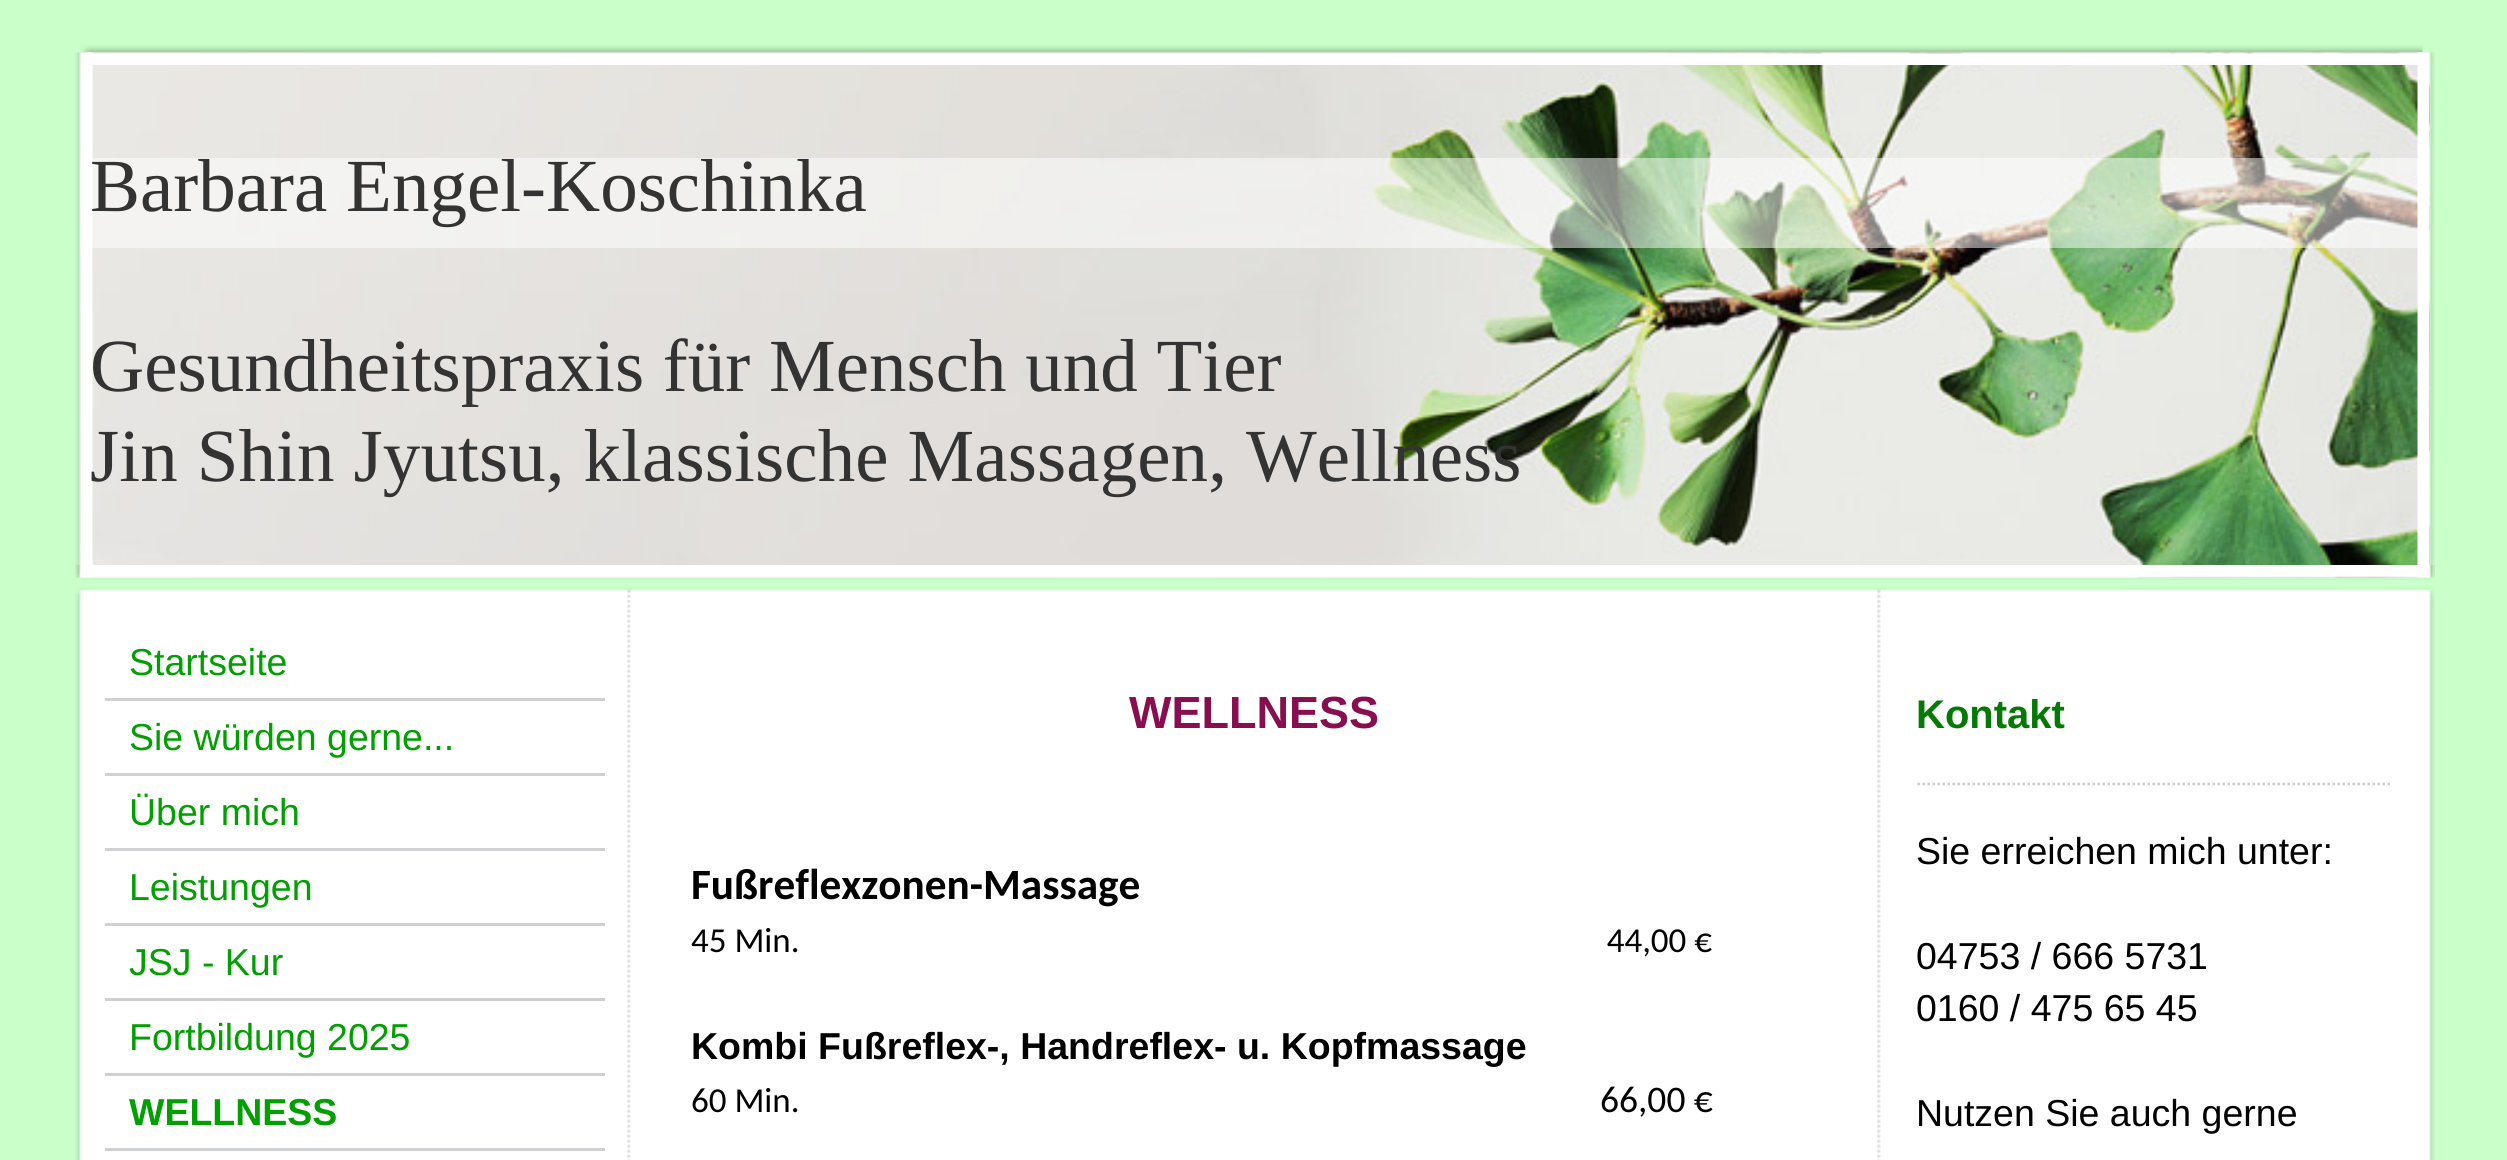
#include <cairo/cairo.h>
#include <math.h>
#include <stddef.h>

typedef struct { double x, y; const char *s; } line_t;
typedef struct { double x, y, w, h; unsigned color; } box_t;
static cairo_t *cr;

static void rgb(unsigned color)
{
	cairo_set_source_rgb(cr, (color >> 16) / 255.0, (color >> 8 & 255) / 255.0, (color & 255) / 255.0);
}

static void tracked(double x, double y, const char *s, double letter, double word)
{
	cairo_move_to(cr, x, y);
	while (*s) {
		char ch[5] = {0};
		int n = 0;
		do ch[n++] = *s++; while ((*s & 0xC0) == 0x80);
		cairo_show_text(cr, ch);
		cairo_rel_move_to(cr, letter + word * (*ch == ' '), 0);
	}
}

static void image(const char *path, double x, double y, double w, double h)
{
	cairo_surface_t *image = cairo_image_surface_create_from_png(path);
	cairo_save(cr);
	cairo_set_source_surface(cr, image, x, y);
	cairo_rectangle(cr, x, y, w, h);
	cairo_fill(cr);
	cairo_restore(cr);
	cairo_surface_destroy(image);
}

int main(void) {
	cairo_surface_t *surface = cairo_image_surface_create(CAIRO_FORMAT_RGB24, 2507, 1160);
	cr = cairo_create(surface);
	cairo_font_options_t *options = cairo_font_options_create();
	cairo_font_options_set_hint_metrics(options, CAIRO_HINT_METRICS_OFF);
	cairo_font_options_set_hint_style(options, CAIRO_HINT_STYLE_NONE);
	cairo_set_font_options(cr, options);
	cairo_set_miter_limit(cr, 4);
	rgb(0xc9ffc9);
	cairo_paint(cr);
	rgb(0xeeeeee);
	cairo_rectangle(cr, 80, 577, 2350, 1);
	cairo_fill(cr);
	image("img/3.png", 80, 52, 2350, 526);
	image("img/1.png", 80, 45, 2343, 20);
	cairo_set_source_rgba(cr, 1, 1, 1, 0.5);
	cairo_rectangle(cr, 80, 158, 2350, 90);
	cairo_fill(cr);
	image("img/2.png", 75, 52, 18, 526);
	image("img/4.png", 2417, 52, 18, 526);
	image("img/5.png", 75, 565, 2360, 15);
	image("img/6.png", 75, 588, 2360, 12);
	image("img/7.png", 75, 600, 2360, 560);
	{
		static const box_t items[] = {
			{105, 698, 500, 3, 0xcfd0d1},
			{105, 773, 500, 3, 0xcfd0d1},
			{105, 848, 500, 3, 0xcfd0d1},
			{105, 923, 500, 3, 0xcfd0d1},
			{105, 998, 500, 3, 0xcfd0d1},
			{105, 1073, 500, 3, 0xcfd0d1},
			{105, 1148, 500, 3, 0xcfd0d1},
		};
		for (size_t i = 0; i < sizeof items / sizeof *items; i++) {
			rgb(items[i].color);
			cairo_rectangle(cr, items[i].x, items[i].y, items[i].w, items[i].h);
			cairo_fill(cr);
		}
	}
	cairo_new_path(cr);
	cairo_move_to(cr, 1917.5, 784);
	cairo_line_to(cr, 2392.5, 784);
	rgb(0xcccccc);
	cairo_set_line_width(cr, 2.5);
	cairo_set_dash(cr, (double[]){2.5, 2.5}, 2, 0);
	cairo_stroke(cr);
	cairo_select_font_face(cr, "Liberation Serif", CAIRO_FONT_SLANT_NORMAL, CAIRO_FONT_WEIGHT_NORMAL);
	cairo_set_font_size(cr, 75);
	rgb(0x333333);
	cairo_move_to(cr, 90, 211);
	cairo_show_text(cr, "Barbara Engel-Koschinka");
	cairo_move_to(cr, 90, 391);
	cairo_show_text(cr, "Gesundheitspraxis für Mensch und Tier");
	tracked(90, 481, "Jin Shin Jyutsu, klassische Massagen, Wellness", 0.1, 0);
	cairo_select_font_face(cr, "Liberation Sans", CAIRO_FONT_SLANT_NORMAL, CAIRO_FONT_WEIGHT_NORMAL);
	cairo_set_font_size(cr, 37.5);
	rgb(0x00a000);
	{
		static const line_t items[] = {
			{129, 675, "Startseite"},
			{129, 750, "Sie würden gerne..."},
			{129, 825, "Über mich"},
			{129, 900, "Leistungen"},
			{129, 975, "JSJ - Kur"},
			{129, 1050, "Fortbildung 2025"},
		};
		for (size_t i = 0; i < sizeof items / sizeof *items; i++) {
			cairo_move_to(cr, items[i].x, items[i].y);
			cairo_show_text(cr, items[i].s);
		}
	}
	cairo_select_font_face(cr, "Liberation Sans", CAIRO_FONT_SLANT_NORMAL, CAIRO_FONT_WEIGHT_BOLD);
	cairo_move_to(cr, 129, 1125);
	cairo_show_text(cr, "WELLNESS");
	cairo_set_font_size(cr, 45);
	rgb(0x880e4f);
	cairo_move_to(cr, 1129, 728);
	cairo_show_text(cr, "WELLNESS");
	cairo_select_font_face(cr, "Carlito", CAIRO_FONT_SLANT_NORMAL, CAIRO_FONT_WEIGHT_BOLD);
	cairo_set_font_size(cr, 43.25);
	rgb(0x000000);
	cairo_move_to(cr, 691, 899);
	cairo_show_text(cr, "Fußreflexzonen-Massage");
	cairo_select_font_face(cr, "Carlito", CAIRO_FONT_SLANT_NORMAL, CAIRO_FONT_WEIGHT_NORMAL);
	cairo_set_font_size(cr, 35);
	cairo_move_to(cr, 691, 952);
	cairo_show_text(cr, "45 Min.                                                                                                      44,00 €");
	cairo_select_font_face(cr, "Liberation Sans", CAIRO_FONT_SLANT_NORMAL, CAIRO_FONT_WEIGHT_BOLD);
	cairo_set_font_size(cr, 37.5);
	cairo_move_to(cr, 691, 1059);
	cairo_show_text(cr, "Kombi Fußreflex-, Handreflex- u. Kopfmassage");
	cairo_select_font_face(cr, "Carlito", CAIRO_FONT_SLANT_NORMAL, CAIRO_FONT_WEIGHT_NORMAL);
	cairo_set_font_size(cr, 35);
	cairo_move_to(cr, 691, 1112);
	cairo_show_text(cr, "60 Min.");
	cairo_set_font_size(cr, 37.5);
	cairo_move_to(cr, 1600, 1112);
	cairo_show_text(cr, "66,00 €");
	cairo_select_font_face(cr, "Liberation Sans", CAIRO_FONT_SLANT_NORMAL, CAIRO_FONT_WEIGHT_BOLD);
	cairo_set_font_size(cr, 40);
	rgb(0x037a04);
	cairo_move_to(cr, 1916, 728);
	cairo_show_text(cr, "Kontakt");
	cairo_select_font_face(cr, "Liberation Sans", CAIRO_FONT_SLANT_NORMAL, CAIRO_FONT_WEIGHT_NORMAL);
	cairo_set_font_size(cr, 37.5);
	rgb(0x000000);
	{
		static const line_t items[] = {
			{1916, 864, "Sie erreichen mich unter:"},
			{1916, 969, "04753 / 666 5731"},
			{1916, 1021, "0160 / 475 65 45"},
			{1916, 1126, "Nutzen Sie auch gerne"},
		};
		for (size_t i = 0; i < sizeof items / sizeof *items; i++) {
			cairo_move_to(cr, items[i].x, items[i].y);
			cairo_show_text(cr, items[i].s);
		}
	}
	cairo_surface_write_to_png(surface, "page.png");
	cairo_font_options_destroy(options);
	cairo_destroy(cr);
	cairo_surface_destroy(surface);
	return 0;
}
